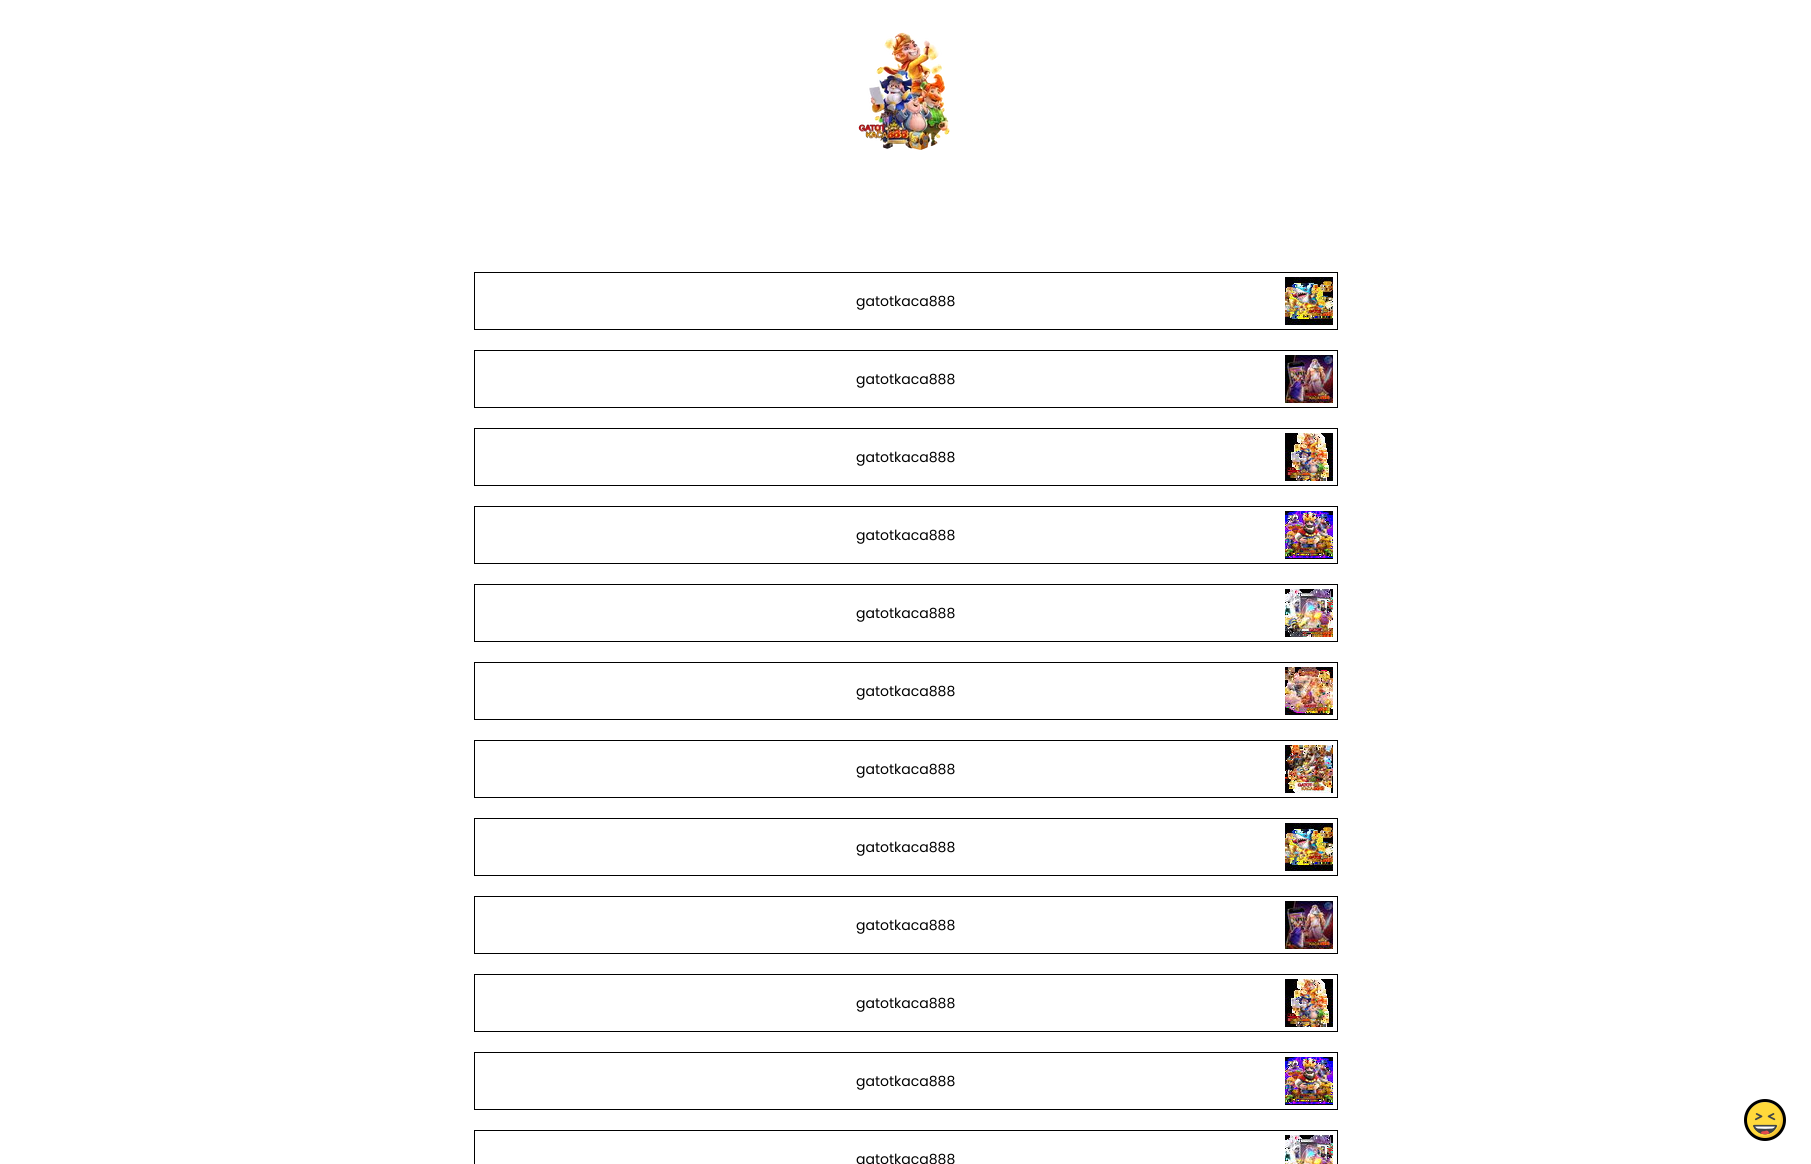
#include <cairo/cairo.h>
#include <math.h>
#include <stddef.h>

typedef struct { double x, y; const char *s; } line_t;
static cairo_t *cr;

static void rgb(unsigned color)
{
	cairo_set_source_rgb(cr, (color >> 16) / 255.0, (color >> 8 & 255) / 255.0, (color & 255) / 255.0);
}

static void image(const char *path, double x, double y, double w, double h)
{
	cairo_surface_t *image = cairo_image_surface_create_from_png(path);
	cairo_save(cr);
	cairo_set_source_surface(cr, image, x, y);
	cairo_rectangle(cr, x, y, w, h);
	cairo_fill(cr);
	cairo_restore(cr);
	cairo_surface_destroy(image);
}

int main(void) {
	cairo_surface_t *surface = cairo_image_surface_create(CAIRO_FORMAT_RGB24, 1811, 1164);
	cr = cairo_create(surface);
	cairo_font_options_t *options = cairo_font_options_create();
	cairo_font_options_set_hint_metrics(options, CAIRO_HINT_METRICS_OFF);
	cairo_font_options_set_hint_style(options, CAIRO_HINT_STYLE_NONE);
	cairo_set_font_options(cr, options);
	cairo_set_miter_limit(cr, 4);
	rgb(0xffffff);
	cairo_paint(cr);
	image("img/1.png", 858, 32, 92, 118);
	cairo_rectangle(cr, 474.5, 272.5, 863, 57);
	rgb(0x000000);
	cairo_set_line_width(cr, 1);
	cairo_stroke(cr);
	image("img/2.png", 1285, 277, 48, 48);
	cairo_rectangle(cr, 474.5, 350.5, 863, 57);
	cairo_stroke(cr);
	image("img/3.png", 1285, 355, 48, 48);
	cairo_rectangle(cr, 474.5, 428.5, 863, 57);
	cairo_stroke(cr);
	image("img/4.png", 1285, 433, 48, 48);
	cairo_rectangle(cr, 474.5, 506.5, 863, 57);
	cairo_stroke(cr);
	image("img/5.png", 1285, 511, 48, 48);
	cairo_rectangle(cr, 474.5, 584.5, 863, 57);
	cairo_stroke(cr);
	image("img/6.png", 1285, 589, 48, 48);
	cairo_rectangle(cr, 474.5, 662.5, 863, 57);
	cairo_stroke(cr);
	image("img/7.png", 1285, 667, 48, 48);
	cairo_rectangle(cr, 474.5, 740.5, 863, 57);
	cairo_stroke(cr);
	image("img/8.png", 1285, 745, 48, 48);
	cairo_rectangle(cr, 474.5, 818.5, 863, 57);
	cairo_stroke(cr);
	image("img/2.png", 1285, 823, 48, 48);
	cairo_rectangle(cr, 474.5, 896.5, 863, 57);
	cairo_stroke(cr);
	image("img/3.png", 1285, 901, 48, 48);
	cairo_rectangle(cr, 474.5, 974.5, 863, 57);
	cairo_stroke(cr);
	image("img/4.png", 1285, 979, 48, 48);
	cairo_rectangle(cr, 474.5, 1052.5, 863, 57);
	cairo_stroke(cr);
	image("img/5.png", 1285, 1057, 48, 48);
	cairo_rectangle(cr, 474.5, 1130.5, 863, 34);
	cairo_stroke(cr);
	image("img/9.png", 1285, 1135, 48, 29);
	image("img/10.png", 1744, 1099, 42, 42);
	cairo_select_font_face(cr, "Poppins", CAIRO_FONT_SLANT_NORMAL, CAIRO_FONT_WEIGHT_NORMAL);
	cairo_set_font_size(cr, 14);
	{
		static const line_t items[] = {
			{856, 306, "gatotkaca888"},
			{856, 384, "gatotkaca888"},
			{856, 462, "gatotkaca888"},
			{856, 540, "gatotkaca888"},
			{856, 618, "gatotkaca888"},
			{856, 696, "gatotkaca888"},
			{856, 774, "gatotkaca888"},
			{856, 852, "gatotkaca888"},
			{856, 930, "gatotkaca888"},
			{856, 1008, "gatotkaca888"},
			{856, 1086, "gatotkaca888"},
			{856, 1164, "gatotkaca888"},
		};
		for (size_t i = 0; i < sizeof items / sizeof *items; i++) {
			cairo_move_to(cr, items[i].x, items[i].y);
			cairo_show_text(cr, items[i].s);
		}
	}
	cairo_surface_write_to_png(surface, "page.png");
	cairo_font_options_destroy(options);
	cairo_destroy(cr);
	cairo_surface_destroy(surface);
	return 0;
}
